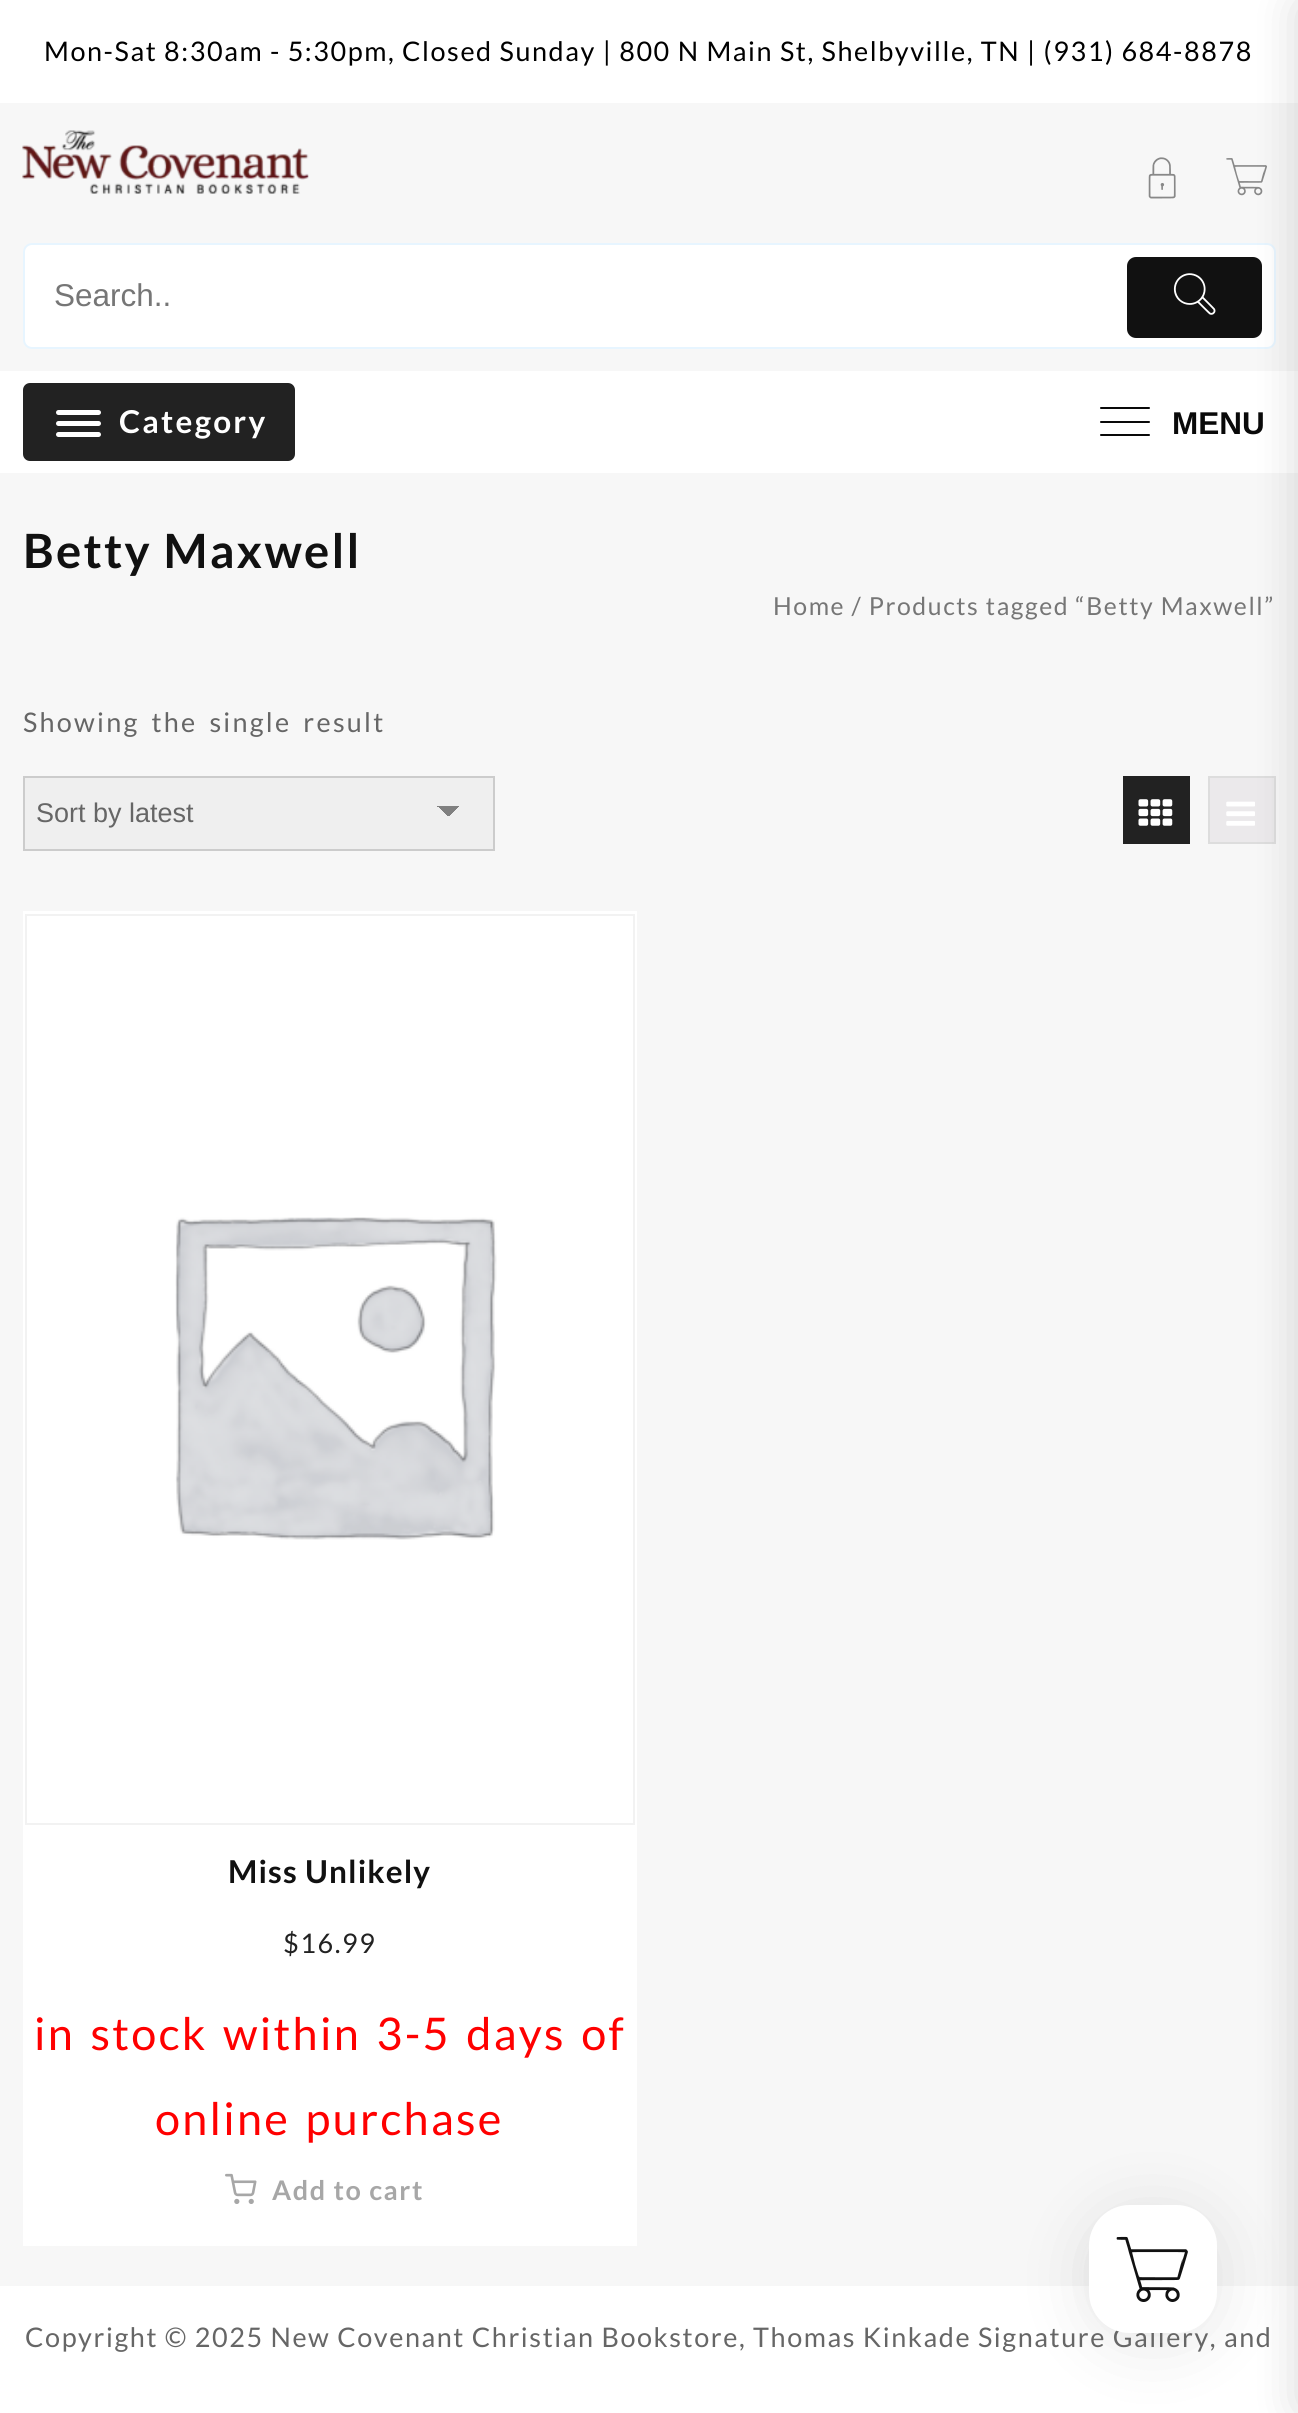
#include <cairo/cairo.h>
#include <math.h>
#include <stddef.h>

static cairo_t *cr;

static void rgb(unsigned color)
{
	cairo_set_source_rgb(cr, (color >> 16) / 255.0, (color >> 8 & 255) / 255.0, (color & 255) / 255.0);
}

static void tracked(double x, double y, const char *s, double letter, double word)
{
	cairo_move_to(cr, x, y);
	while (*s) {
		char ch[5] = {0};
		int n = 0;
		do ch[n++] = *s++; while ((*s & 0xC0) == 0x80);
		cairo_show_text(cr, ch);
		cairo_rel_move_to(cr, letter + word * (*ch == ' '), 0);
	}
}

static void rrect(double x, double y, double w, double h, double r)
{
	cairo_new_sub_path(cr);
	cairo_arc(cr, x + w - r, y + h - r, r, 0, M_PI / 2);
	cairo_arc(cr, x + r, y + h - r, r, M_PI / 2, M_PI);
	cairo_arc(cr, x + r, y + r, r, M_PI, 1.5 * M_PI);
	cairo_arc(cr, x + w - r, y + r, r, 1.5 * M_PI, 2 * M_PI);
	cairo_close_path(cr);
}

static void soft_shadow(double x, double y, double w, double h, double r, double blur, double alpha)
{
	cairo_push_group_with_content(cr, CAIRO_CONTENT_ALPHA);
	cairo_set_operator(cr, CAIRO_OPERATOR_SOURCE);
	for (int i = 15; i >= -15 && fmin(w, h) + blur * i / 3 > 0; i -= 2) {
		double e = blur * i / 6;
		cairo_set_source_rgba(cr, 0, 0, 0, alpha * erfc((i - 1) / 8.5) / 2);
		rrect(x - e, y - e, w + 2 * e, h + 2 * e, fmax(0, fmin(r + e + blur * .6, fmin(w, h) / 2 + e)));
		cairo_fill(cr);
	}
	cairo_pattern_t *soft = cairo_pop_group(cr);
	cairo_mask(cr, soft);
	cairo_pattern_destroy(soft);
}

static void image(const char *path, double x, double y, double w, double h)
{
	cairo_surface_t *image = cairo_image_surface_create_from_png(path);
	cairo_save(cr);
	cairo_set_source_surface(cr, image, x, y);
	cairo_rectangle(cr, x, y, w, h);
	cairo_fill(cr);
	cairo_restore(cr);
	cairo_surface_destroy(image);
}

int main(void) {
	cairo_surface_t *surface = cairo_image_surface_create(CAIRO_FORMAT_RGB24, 1298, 2413);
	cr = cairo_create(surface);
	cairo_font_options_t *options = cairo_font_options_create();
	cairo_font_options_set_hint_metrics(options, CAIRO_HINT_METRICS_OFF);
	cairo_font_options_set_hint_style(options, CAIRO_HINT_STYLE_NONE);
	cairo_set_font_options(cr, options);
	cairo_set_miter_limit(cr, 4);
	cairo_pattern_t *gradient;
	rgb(0xf7f7f7);
	cairo_paint(cr);
	rgb(0xffffff);
	cairo_rectangle(cr, 0, 0, 1298, 103);
	cairo_fill(cr);
	image("img/3.png", 1226, 158, 41, 38);
	rrect(24, 244, 1251, 104, 8);
	cairo_fill_preserve(cr);
	rgb(0xe7f5ff);
	cairo_stroke(cr);
	rgb(0x111111);
	rrect(1127, 257, 135, 81, 9);
	cairo_fill(cr);
	rgb(0xffffff);
	cairo_rectangle(cr, 0, 371, 1298, 102);
	cairo_fill(cr);
	rgb(0xebe9eb);
	cairo_rectangle(cr, 1209, 777, 66, 66);
	cairo_fill_preserve(cr);
	rgb(0xdddddd);
	cairo_stroke(cr);
	image("img/6.png", 1226, 801, 29, 25);
	rgb(0xffffff);
	cairo_rectangle(cr, 0, 2286, 1298, 127);
	cairo_fill(cr);
	rgb(0x000000);
	soft_shadow(1298, 0, 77, 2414, 9, 22.5, 0.15);
	image("img/1.png", 22, 130, 287, 64);
	image("img/2.png", 1148, 157, 28, 42);
	image("img/4.png", 1173, 273, 43, 42);
	rgb(0x222222);
	rrect(23, 383, 272, 78, 7);
	cairo_fill(cr);
	rgb(0xffffff);
	rrect(56, 410, 45, 5, 2.5);
	cairo_fill(cr);
	rrect(56, 421, 45, 5, 2.5);
	cairo_fill(cr);
	rrect(56, 432, 45, 5, 2.5);
	cairo_fill(cr);
	rgb(0x090909);
	rrect(1100, 407, 50, 2, 1);
	cairo_fill(cr);
	rrect(1100, 421, 50, 2, 1);
	cairo_fill(cr);
	rrect(1100, 434, 50, 2, 1);
	cairo_fill(cr);
	rgb(0xefefef);
	cairo_rectangle(cr, 25, 778, 468, 71);
	cairo_fill(cr);
	gradient = cairo_pattern_create_linear(448, 806, 459, 817);
	cairo_pattern_add_color_stop_rgba(gradient, 0.5, 0.502, 0.502, 0.502, 1);
	cairo_pattern_add_color_stop_rgba(gradient, 0.5, 0.937, 0.937, 0.937, 1);
	cairo_set_source(cr, gradient);
	cairo_pattern_destroy(gradient);
	cairo_rectangle(cr, 448, 806, 11, 10);
	cairo_fill(cr);
	gradient = cairo_pattern_create_linear(437, 817, 448, 806);
	cairo_pattern_add_color_stop_rgba(gradient, 0.5, 0.937, 0.937, 0.937, 1);
	cairo_pattern_add_color_stop_rgba(gradient, 0.5, 0.502, 0.502, 0.502, 1);
	cairo_set_source(cr, gradient);
	cairo_pattern_destroy(gradient);
	cairo_rectangle(cr, 437, 806, 11, 10);
	cairo_fill(cr);
	cairo_rectangle(cr, 24, 777, 470, 73);
	rgb(0xcccccc);
	cairo_stroke(cr);
	rgb(0x222222);
	cairo_rectangle(cr, 1123, 776, 67, 68);
	cairo_fill(cr);
	image("img/5.png", 1138, 799, 35, 27);
	rgb(0xffffff);
	cairo_rectangle(cr, 23, 911, 614, 1335);
	cairo_fill(cr);
	cairo_rectangle(cr, 26, 915, 608, 909);
	rgb(0xf2f2f2);
	cairo_stroke(cr);
	image("img/7.png", 175, 1217, 322, 323);
	image("img/8.png", 225, 2173, 32, 31);
	rgb(0xdddddd);
	soft_shadow(1080, 2210, 128, 128, 64, 7, 0.1);
	rgb(0x000000);
	soft_shadow(1089, 2214, 128, 128, 41, 34, 0.1);
	cairo_select_font_face(cr, "Lato", CAIRO_FONT_SLANT_NORMAL, CAIRO_FONT_WEIGHT_NORMAL);
	cairo_set_font_size(cr, 27);
	rgb(0x000000);
	tracked(44, 61, "Mon-Sat 8:30am - 5:30pm, Closed Sunday | 800 N Main St, Shelbyville, TN | (931) 684-8878", 1.57, 0);
	cairo_select_font_face(cr, "Liberation Sans", CAIRO_FONT_SLANT_NORMAL, CAIRO_FONT_WEIGHT_NORMAL);
	cairo_set_font_size(cr, 31.5);
	rgb(0x767676);
	cairo_move_to(cr, 54, 306);
	cairo_show_text(cr, "Search..");
	cairo_select_font_face(cr, "Lato", CAIRO_FONT_SLANT_NORMAL, CAIRO_FONT_WEIGHT_BOLD);
	rgb(0xffffff);
	tracked(119, 433, "Category", 2.25, 0);
	cairo_select_font_face(cr, "Liberation Sans", CAIRO_FONT_SLANT_NORMAL, CAIRO_FONT_WEIGHT_BOLD);
	rgb(0x090909);
	cairo_move_to(cr, 1172, 434);
	cairo_show_text(cr, "MENU");
	cairo_select_font_face(cr, "Lato", CAIRO_FONT_SLANT_NORMAL, CAIRO_FONT_WEIGHT_BOLD);
	cairo_set_font_size(cr, 47.25);
	rgb(0x111111);
	tracked(23, 568, "Betty Maxwell", 2.25, 0);
	cairo_select_font_face(cr, "Lato", CAIRO_FONT_SLANT_NORMAL, CAIRO_FONT_WEIGHT_NORMAL);
	cairo_set_font_size(cr, 24.8);
	rgb(0x767676);
	tracked(773, 615, "Home / Products tagged “Betty Maxwell”", 1.57, 0);
	cairo_set_font_size(cr, 27);
	rgb(0x666666);
	tracked(23, 732, "Showing the single result", 2.25, 4.5);
	cairo_select_font_face(cr, "Liberation Sans", CAIRO_FONT_SLANT_NORMAL, CAIRO_FONT_WEIGHT_NORMAL);
	cairo_move_to(cr, 36, 822);
	cairo_show_text(cr, "Sort by latest");
	cairo_select_font_face(cr, "Lato", CAIRO_FONT_SLANT_NORMAL, CAIRO_FONT_WEIGHT_BOLD);
	cairo_set_font_size(cr, 31.5);
	rgb(0x111111);
	tracked(228, 1883, "Miss Unlikely", 1.1, 0);
	cairo_select_font_face(cr, "Lato", CAIRO_FONT_SLANT_NORMAL, CAIRO_FONT_WEIGHT_NORMAL);
	cairo_set_font_size(cr, 27);
	rgb(0x222222);
	tracked(283, 1953, "$16.99", 1.57, 0);
	cairo_set_font_size(cr, 45);
	rgb(0xff0000);
	tracked(34, 2050, "in stock within 3-5 days of", 2.25, 4.5);
	tracked(155, 2135, "online purchase", 2.25, 4.5);
	cairo_select_font_face(cr, "Lato", CAIRO_FONT_SLANT_NORMAL, CAIRO_FONT_WEIGHT_BOLD);
	cairo_set_font_size(cr, 27);
	rgb(0xa7a7a7);
	tracked(272, 2200, "Add to cart", 1.57, 0);
	cairo_select_font_face(cr, "Lato", CAIRO_FONT_SLANT_NORMAL, CAIRO_FONT_WEIGHT_NORMAL);
	rgb(0x666666);
	tracked(25, 2347, "Copyright © 2025 New Covenant Christian Bookstore, Thomas Kinkade Signature Gallery, and", 1.57, 0);
	rgb(0xffffff);
	rrect(1089, 2205, 128, 128, 41);
	cairo_fill(cr);
	rrect(1090, 2206, 126, 126, 40);
	cairo_set_source_rgba(cr, 1, 1, 1, 0.27);
	cairo_stroke(cr);
	image("img/9.png", 1116, 2236, 72, 66);
	cairo_surface_write_to_png(surface, "page.png");
	cairo_font_options_destroy(options);
	cairo_destroy(cr);
	cairo_surface_destroy(surface);
	return 0;
}
